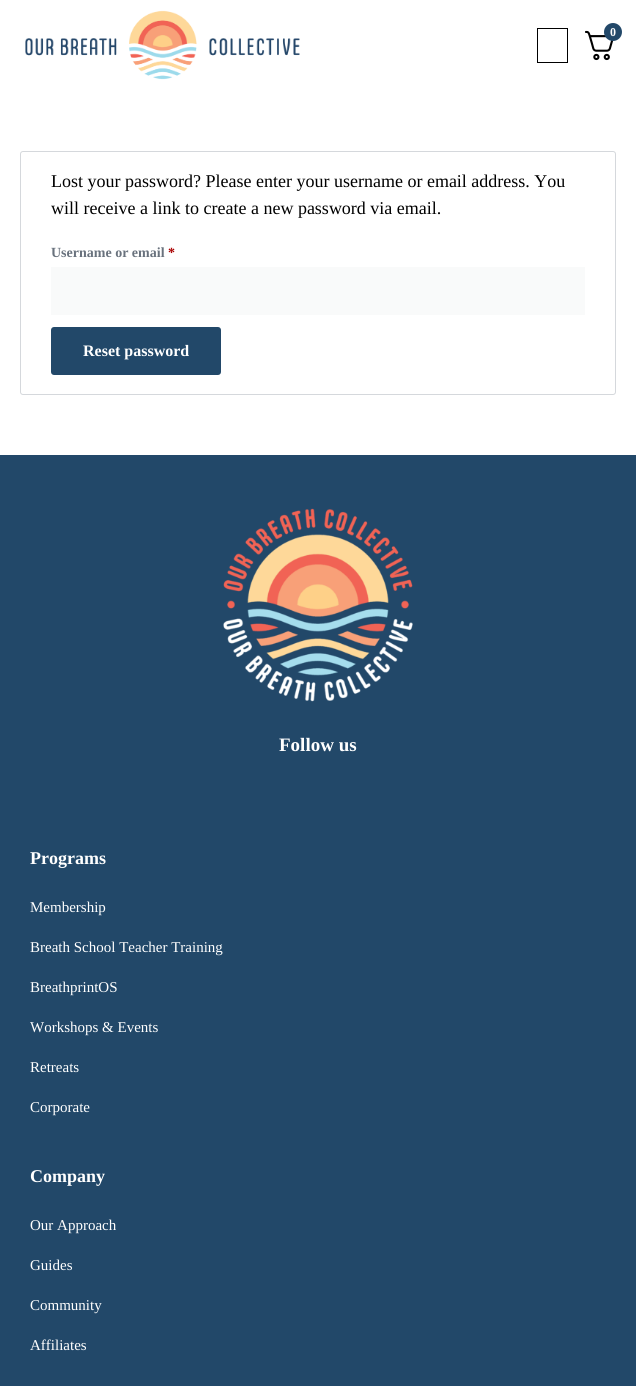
#include <cairo/cairo.h>
#include <math.h>
#include <stddef.h>

typedef struct { double x, y; const char *s; } line_t;
static cairo_t *cr;

static void rgb(unsigned color)
{
	cairo_set_source_rgb(cr, (color >> 16) / 255.0, (color >> 8 & 255) / 255.0, (color & 255) / 255.0);
}

static void rrect(double x, double y, double w, double h, double r)
{
	cairo_new_sub_path(cr);
	cairo_arc(cr, x + w - r, y + h - r, r, 0, M_PI / 2);
	cairo_arc(cr, x + r, y + h - r, r, M_PI / 2, M_PI);
	cairo_arc(cr, x + r, y + r, r, M_PI, 1.5 * M_PI);
	cairo_arc(cr, x + w - r, y + r, r, 1.5 * M_PI, 2 * M_PI);
	cairo_close_path(cr);
}

static void image(const char *path, double x, double y, double w, double h)
{
	cairo_surface_t *image = cairo_image_surface_create_from_png(path);
	cairo_save(cr);
	cairo_set_source_surface(cr, image, x, y);
	cairo_rectangle(cr, x, y, w, h);
	cairo_fill(cr);
	cairo_restore(cr);
	cairo_surface_destroy(image);
}

int main(void) {
	cairo_surface_t *surface = cairo_image_surface_create(CAIRO_FORMAT_RGB24, 636, 1386);
	cr = cairo_create(surface);
	cairo_font_options_t *options = cairo_font_options_create();
	cairo_font_options_set_hint_metrics(options, CAIRO_HINT_METRICS_OFF);
	cairo_font_options_set_hint_style(options, CAIRO_HINT_STYLE_NONE);
	cairo_set_font_options(cr, options);
	cairo_set_miter_limit(cr, 4);
	rgb(0xffffff);
	cairo_paint(cr);
	image("img/1.png", 25, 10, 275, 70);
	cairo_rectangle(cr, 537.5, 28.5, 30, 34);
	rgb(0x000000);
	cairo_set_line_width(cr, 1);
	cairo_stroke(cr);
	image("img/2.png", 585, 30, 29, 31);
	rgb(0x224869);
	cairo_arc(cr, 613, 32, 9, 0, 2 * M_PI);
	cairo_fill(cr);
	rrect(20.5, 151.5, 595, 243, 2.5);
	rgb(0xd5d8dc);
	cairo_stroke(cr);
	rgb(0xf9fafa);
	cairo_rectangle(cr, 51, 267, 534, 48);
	cairo_fill(cr);
	rgb(0x224869);
	rrect(51, 327, 170, 48, 3);
	cairo_fill(cr);
	cairo_rectangle(cr, 0, 455, 636, 931);
	cairo_fill(cr);
	image("img/3.png", 223, 508, 190, 194);
	cairo_select_font_face(cr, "Liberation Serif", CAIRO_FONT_SLANT_NORMAL, CAIRO_FONT_WEIGHT_BOLD);
	cairo_set_font_size(cr, 12);
	rgb(0xffffff);
	cairo_move_to(cr, 610, 36);
	cairo_show_text(cr, "0");
	cairo_select_font_face(cr, "Liberation Serif", CAIRO_FONT_SLANT_NORMAL, CAIRO_FONT_WEIGHT_NORMAL);
	cairo_set_font_size(cr, 18);
	rgb(0x000000);
	cairo_move_to(cr, 51, 187);
	cairo_show_text(cr, "Lost your password? Please enter your username or email address. You");
	cairo_move_to(cr, 51, 214);
	cairo_show_text(cr, "will receive a link to create a new password via email.");
	cairo_select_font_face(cr, "Liberation Serif", CAIRO_FONT_SLANT_NORMAL, CAIRO_FONT_WEIGHT_BOLD);
	cairo_set_font_size(cr, 14);
	rgb(0x69727d);
	cairo_move_to(cr, 51, 257);
	cairo_show_text(cr, "Username or email");
	rgb(0xaa0000);
	cairo_move_to(cr, 168, 257);
	cairo_show_text(cr, "*");
	cairo_set_font_size(cr, 16);
	rgb(0xffffff);
	cairo_move_to(cr, 83, 356);
	cairo_show_text(cr, "Reset password");
	cairo_set_font_size(cr, 19);
	cairo_move_to(cr, 279, 751);
	cairo_show_text(cr, "Follow us");
	cairo_set_font_size(cr, 18);
	cairo_move_to(cr, 30, 864);
	cairo_show_text(cr, "Programs");
	cairo_select_font_face(cr, "Liberation Serif", CAIRO_FONT_SLANT_NORMAL, CAIRO_FONT_WEIGHT_NORMAL);
	cairo_set_font_size(cr, 15);
	{
		static const line_t items[] = {
			{30, 912, "Membership"},
			{30, 952, "Breath School Teacher Training"},
			{30, 992, "BreathprintOS"},
			{30, 1032, "Workshops & Events"},
			{30, 1072, "Retreats"},
			{30, 1112, "Corporate"},
		};
		for (size_t i = 0; i < sizeof items / sizeof *items; i++) {
			cairo_move_to(cr, items[i].x, items[i].y);
			cairo_show_text(cr, items[i].s);
		}
	}
	cairo_select_font_face(cr, "Liberation Serif", CAIRO_FONT_SLANT_NORMAL, CAIRO_FONT_WEIGHT_BOLD);
	cairo_set_font_size(cr, 18);
	cairo_move_to(cr, 30, 1182);
	cairo_show_text(cr, "Company");
	cairo_select_font_face(cr, "Liberation Serif", CAIRO_FONT_SLANT_NORMAL, CAIRO_FONT_WEIGHT_NORMAL);
	cairo_set_font_size(cr, 15);
	{
		static const line_t items[] = {
			{30, 1230, "Our Approach"},
			{30, 1270, "Guides"},
			{30, 1310, "Community"},
			{30, 1350, "Affiliates"},
		};
		for (size_t i = 0; i < sizeof items / sizeof *items; i++) {
			cairo_move_to(cr, items[i].x, items[i].y);
			cairo_show_text(cr, items[i].s);
		}
	}
	cairo_surface_write_to_png(surface, "page.png");
	cairo_font_options_destroy(options);
	cairo_destroy(cr);
	cairo_surface_destroy(surface);
	return 0;
}
